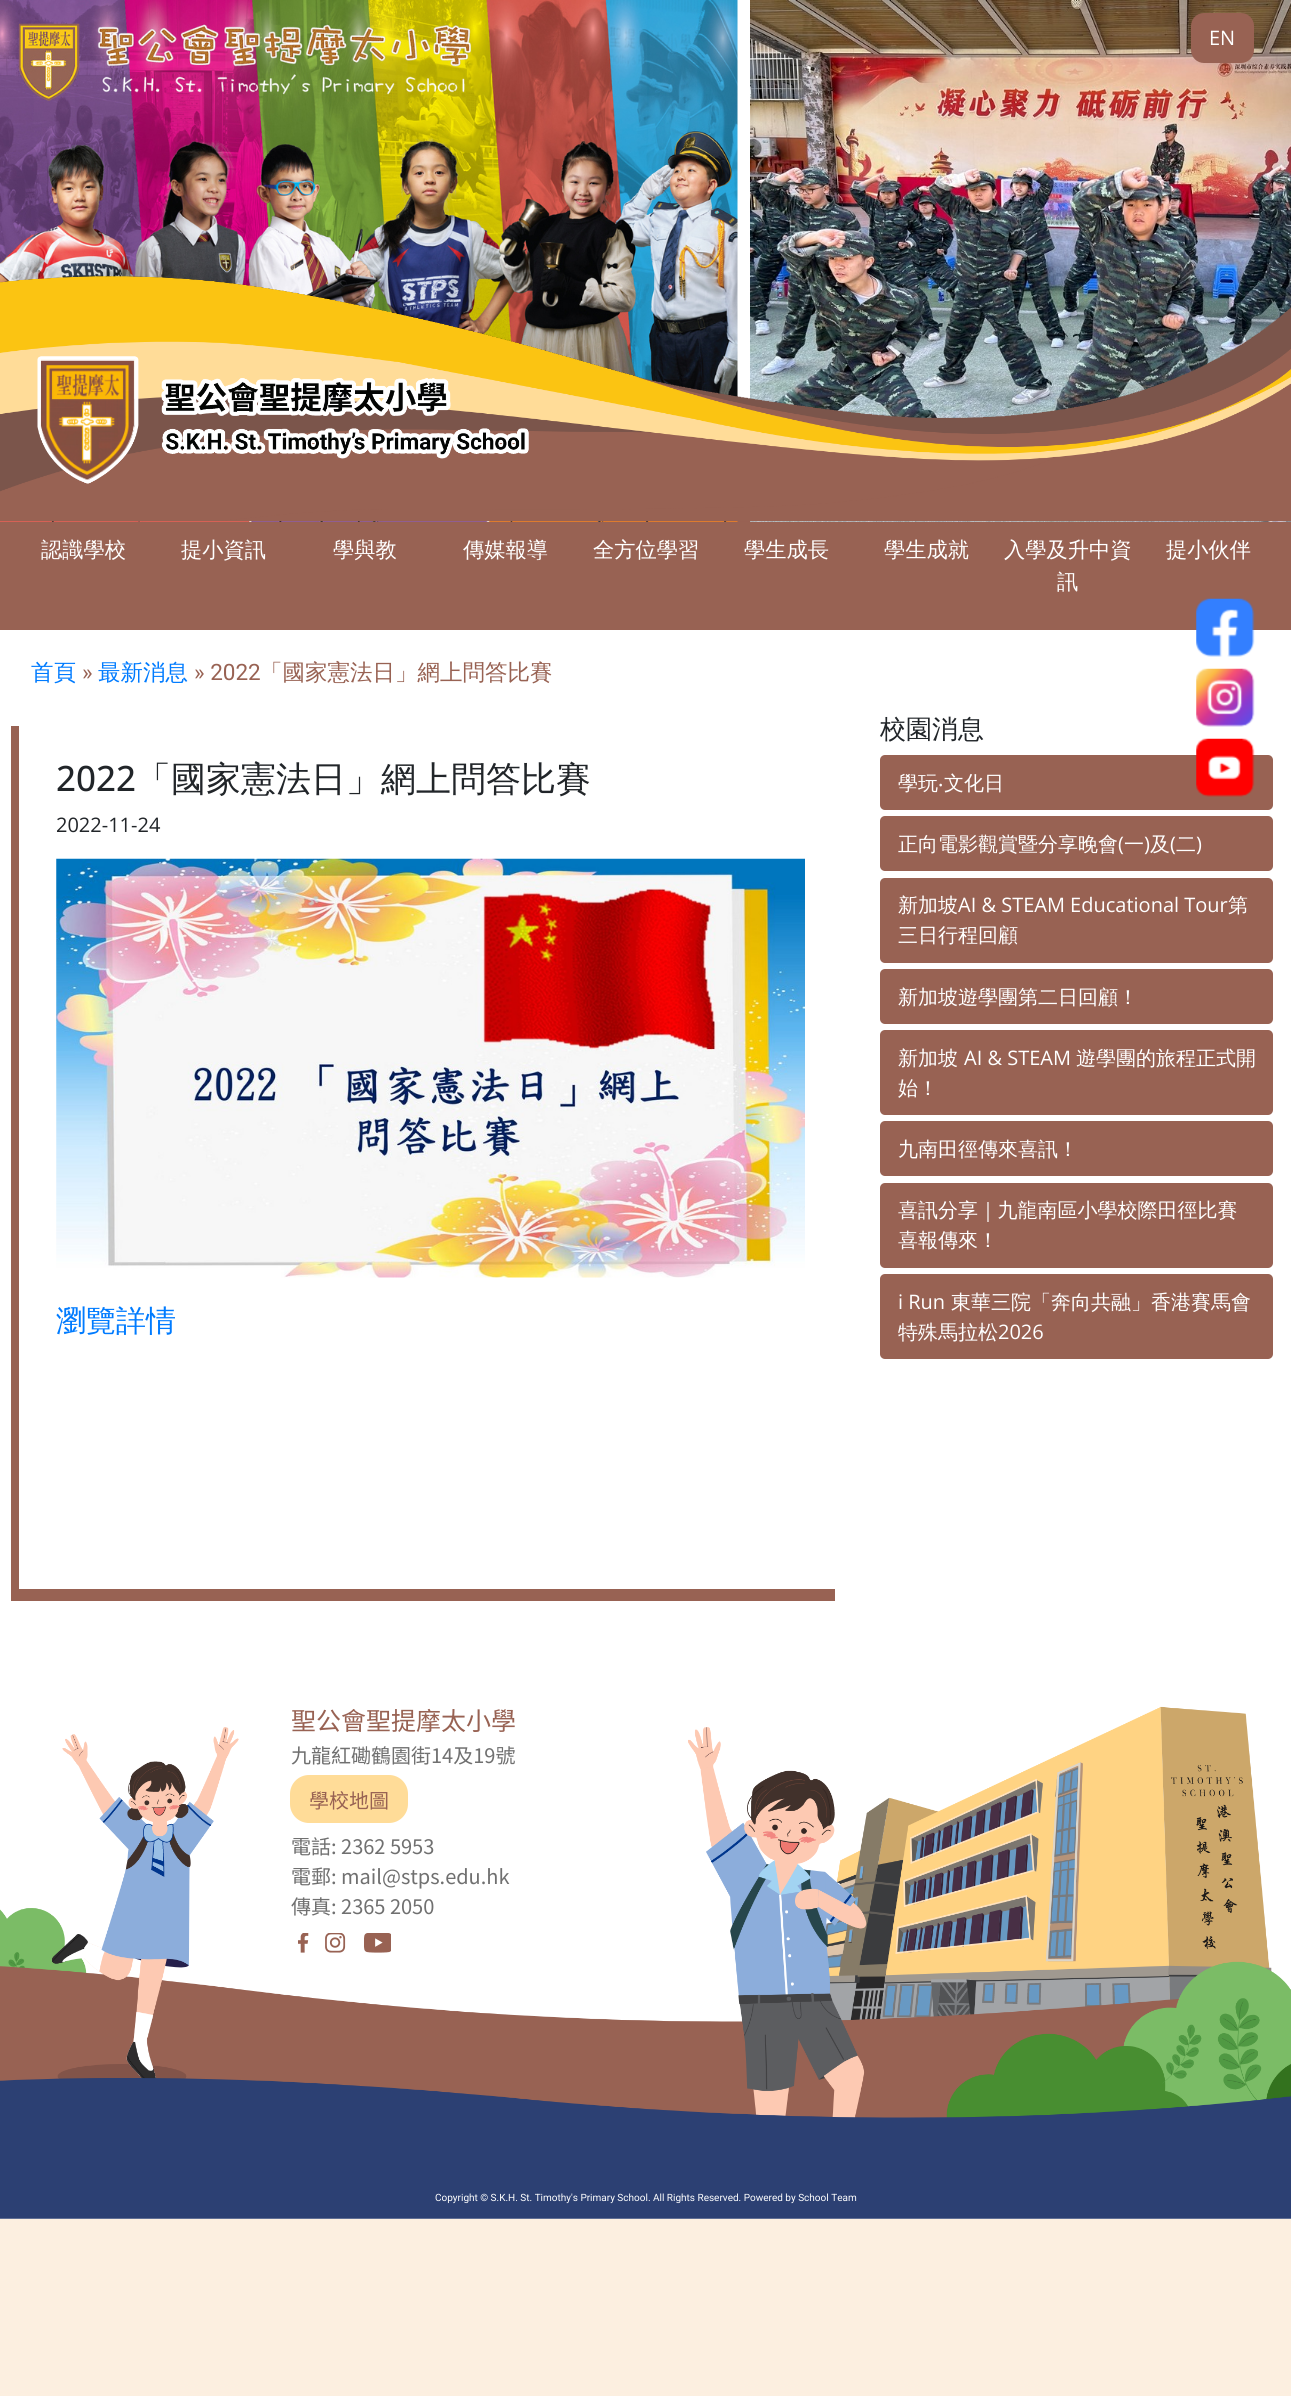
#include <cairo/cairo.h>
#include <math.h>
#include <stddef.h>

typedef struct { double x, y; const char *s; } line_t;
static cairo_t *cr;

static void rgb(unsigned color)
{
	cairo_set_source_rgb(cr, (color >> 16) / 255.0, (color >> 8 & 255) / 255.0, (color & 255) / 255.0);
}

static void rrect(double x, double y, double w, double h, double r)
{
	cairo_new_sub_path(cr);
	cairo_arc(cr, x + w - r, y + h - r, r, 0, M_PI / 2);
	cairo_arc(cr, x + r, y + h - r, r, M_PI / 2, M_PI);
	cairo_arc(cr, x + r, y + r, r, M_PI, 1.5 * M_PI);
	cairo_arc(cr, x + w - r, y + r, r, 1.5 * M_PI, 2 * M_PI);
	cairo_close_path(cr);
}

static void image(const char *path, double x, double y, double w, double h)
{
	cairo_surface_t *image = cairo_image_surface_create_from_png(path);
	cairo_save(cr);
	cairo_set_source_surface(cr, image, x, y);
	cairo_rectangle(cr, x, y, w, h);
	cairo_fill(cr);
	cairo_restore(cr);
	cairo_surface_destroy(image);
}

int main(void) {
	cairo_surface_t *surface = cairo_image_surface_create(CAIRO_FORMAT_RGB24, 1291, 2396);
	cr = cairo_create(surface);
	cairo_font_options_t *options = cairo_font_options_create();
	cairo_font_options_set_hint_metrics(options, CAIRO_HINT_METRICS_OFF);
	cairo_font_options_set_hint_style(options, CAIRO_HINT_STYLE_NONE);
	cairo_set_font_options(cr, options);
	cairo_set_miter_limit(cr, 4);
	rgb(0xfcefe0);
	cairo_paint(cr);
	rgb(0xffffff);
	cairo_rectangle(cr, 0, 0, 1291, 2219);
	cairo_fill(cr);
	rgb(0x986253);
	cairo_rectangle(cr, 0, 521, 1291, 109);
	cairo_fill(cr);
	image("img/1.png", 0, 0, 738, 522);
	image("img/2.png", 750, 0, 541, 522);
	image("img/3.png", 0, 276, 1291, 246);
	image("img/4.png", 37, 356, 492, 128);
	image("img/5.png", 1196, 598, 59, 59);
	image("img/6.png", 1196, 668, 59, 59);
	rrect(880, 755, 393, 55, 5);
	cairo_fill(cr);
	image("img/7.png", 1196, 738, 59, 59);
	rrect(1191, 13, 63, 50, 13);
	cairo_fill(cr);
	cairo_new_path(cr);
	cairo_move_to(cr, 11, 726);
	cairo_line_to(cr, 11, 1601);
	cairo_line_to(cr, 835, 1601);
	cairo_line_to(cr, 835, 1589);
	cairo_line_to(cr, 19, 1589);
	cairo_line_to(cr, 19, 726);
	cairo_close_path(cr);
	cairo_fill(cr);
	image("img/8.png", 56, 858, 749, 420);
	rrect(880, 816, 393, 55, 5);
	cairo_fill(cr);
	rrect(880, 878, 393, 85, 5);
	cairo_fill(cr);
	rrect(880, 969, 393, 55, 5);
	cairo_fill(cr);
	rrect(880, 1030, 393, 85, 5);
	cairo_fill(cr);
	rrect(880, 1121, 393, 55, 5);
	cairo_fill(cr);
	rrect(880, 1183, 393, 85, 5);
	cairo_fill(cr);
	rrect(880, 1274, 393, 85, 5);
	cairo_fill(cr);
	image("img/9.png", 0, 1706, 1291, 513);
	rgb(0xffdc98);
	rrect(290, 1775, 118, 48, 19);
	cairo_fill(cr);
	image("img/10.png", 298, 1933, 11, 20);
	image("img/11.png", 325, 1933, 21, 20);
	image("img/12.png", 364, 1933, 27, 20);
	cairo_select_font_face(cr, "Open Sans", CAIRO_FONT_SLANT_NORMAL, CAIRO_FONT_WEIGHT_NORMAL);
	cairo_set_font_size(cr, 20);
	rgb(0xffffff);
	cairo_move_to(cr, 1209, 45);
	cairo_show_text(cr, "EN");
	cairo_select_font_face(cr, "WenQuanYi Zen Hei Medium", CAIRO_FONT_SLANT_NORMAL, CAIRO_FONT_WEIGHT_NORMAL);
	cairo_set_font_size(cr, 21.25);
	{
		static const line_t items[] = {
			{41, 557, "認識學校"},
			{181, 557, "提小資訊"},
			{333, 557, "學與教"},
			{463, 557, "傳媒報導"},
			{593, 557, "全方位學習"},
			{744, 557, "學生成長"},
			{884, 557, "學生成就"},
			{1004, 557, "入學及升中資"},
			{1057, 589, "訊"},
			{1166, 557, "提小伙伴"},
		};
		for (size_t i = 0; i < sizeof items / sizeof *items; i++) {
			cairo_move_to(cr, items[i].x, items[i].y);
			cairo_show_text(cr, items[i].s);
		}
	}
	cairo_set_font_size(cr, 22.5);
	rgb(0x007bff);
	cairo_move_to(cr, 31, 680);
	cairo_show_text(cr, "首頁");
	cairo_select_font_face(cr, "Roboto", CAIRO_FONT_SLANT_NORMAL, CAIRO_FONT_WEIGHT_NORMAL);
	rgb(0x986253);
	cairo_move_to(cr, 82, 680);
	cairo_show_text(cr, "»");
	cairo_select_font_face(cr, "WenQuanYi Zen Hei Medium", CAIRO_FONT_SLANT_NORMAL, CAIRO_FONT_WEIGHT_NORMAL);
	rgb(0x007bff);
	cairo_move_to(cr, 98, 680);
	cairo_show_text(cr, "最新消息");
	cairo_select_font_face(cr, "Roboto", CAIRO_FONT_SLANT_NORMAL, CAIRO_FONT_WEIGHT_NORMAL);
	rgb(0x986253);
	cairo_move_to(cr, 194, 680);
	cairo_show_text(cr, "» 2022");
	cairo_select_font_face(cr, "WenQuanYi Zen Hei Medium", CAIRO_FONT_SLANT_NORMAL, CAIRO_FONT_WEIGHT_NORMAL);
	cairo_move_to(cr, 260, 680);
	cairo_show_text(cr, "「國家憲法日」網上問答比賽");
	cairo_select_font_face(cr, "Open Sans Medium", CAIRO_FONT_SLANT_NORMAL, CAIRO_FONT_WEIGHT_NORMAL);
	cairo_set_font_size(cr, 35);
	rgb(0x212529);
	cairo_move_to(cr, 56, 791);
	cairo_show_text(cr, "2022");
	cairo_select_font_face(cr, "WenQuanYi Zen Hei Medium", CAIRO_FONT_SLANT_NORMAL, CAIRO_FONT_WEIGHT_NORMAL);
	cairo_move_to(cr, 136, 791);
	cairo_show_text(cr, "「國家憲法日」網上問答比賽");
	cairo_select_font_face(cr, "Open Sans", CAIRO_FONT_SLANT_NORMAL, CAIRO_FONT_WEIGHT_NORMAL);
	cairo_set_font_size(cr, 20);
	cairo_move_to(cr, 56, 832);
	cairo_show_text(cr, "2022-11-24");
	cairo_select_font_face(cr, "WenQuanYi Zen Hei Medium", CAIRO_FONT_SLANT_NORMAL, CAIRO_FONT_WEIGHT_NORMAL);
	cairo_set_font_size(cr, 30);
	rgb(0x007bff);
	cairo_move_to(cr, 56, 1331);
	cairo_show_text(cr, "瀏覽詳情");
	cairo_set_font_size(cr, 26);
	rgb(0x212529);
	cairo_move_to(cr, 880, 738);
	cairo_show_text(cr, "校園消息");
	cairo_set_font_size(cr, 20);
	rgb(0xffffff);
	cairo_move_to(cr, 898, 790);
	cairo_show_text(cr, "學玩");
	cairo_select_font_face(cr, "Noto Sans", CAIRO_FONT_SLANT_NORMAL, CAIRO_FONT_WEIGHT_NORMAL);
	cairo_move_to(cr, 938, 790);
	cairo_show_text(cr, "‧");
	cairo_select_font_face(cr, "WenQuanYi Zen Hei Medium", CAIRO_FONT_SLANT_NORMAL, CAIRO_FONT_WEIGHT_NORMAL);
	cairo_move_to(cr, 944, 790);
	cairo_show_text(cr, "文化日");
	cairo_move_to(cr, 898, 851);
	cairo_show_text(cr, "正向電影觀賞暨分享晚會 一 及 二");
	cairo_select_font_face(cr, "Open Sans", CAIRO_FONT_SLANT_NORMAL, CAIRO_FONT_WEIGHT_NORMAL);
	{
		static const line_t items[] = {
			{1118, 851, "("},
			{1144, 851, ")"},
			{1170, 851, "("},
			{1196, 851, ")"},
		};
		for (size_t i = 0; i < sizeof items / sizeof *items; i++) {
			cairo_move_to(cr, items[i].x, items[i].y);
			cairo_show_text(cr, items[i].s);
		}
	}
	cairo_select_font_face(cr, "WenQuanYi Zen Hei Medium", CAIRO_FONT_SLANT_NORMAL, CAIRO_FONT_WEIGHT_NORMAL);
	cairo_move_to(cr, 898, 912);
	cairo_show_text(cr, "新加坡");
	cairo_select_font_face(cr, "Open Sans", CAIRO_FONT_SLANT_NORMAL, CAIRO_FONT_WEIGHT_NORMAL);
	cairo_move_to(cr, 958, 912);
	cairo_show_text(cr, "AI & STEAM Educational Tour");
	cairo_select_font_face(cr, "WenQuanYi Zen Hei Medium", CAIRO_FONT_SLANT_NORMAL, CAIRO_FONT_WEIGHT_NORMAL);
	{
		static const line_t items[] = {
			{1228, 912, "第"},
			{898, 942, "三日行程回顧"},
			{898, 1004, "新加坡遊學團第二日回顧！"},
			{898, 1065, "新加坡"},
		};
		for (size_t i = 0; i < sizeof items / sizeof *items; i++) {
			cairo_move_to(cr, items[i].x, items[i].y);
			cairo_show_text(cr, items[i].s);
		}
	}
	cairo_select_font_face(cr, "Open Sans", CAIRO_FONT_SLANT_NORMAL, CAIRO_FONT_WEIGHT_NORMAL);
	cairo_move_to(cr, 964, 1065);
	cairo_show_text(cr, "AI & STEAM");
	cairo_select_font_face(cr, "WenQuanYi Zen Hei Medium", CAIRO_FONT_SLANT_NORMAL, CAIRO_FONT_WEIGHT_NORMAL);
	{
		static const line_t items[] = {
			{1076, 1065, "遊學團的旅程正式開"},
			{898, 1095, "始！"},
			{898, 1156, "九南田徑傳來喜訊！"},
			{898, 1217, "喜訊分享｜九龍南區小學校際田徑比賽"},
			{898, 1247, "喜報傳來！"},
		};
		for (size_t i = 0; i < sizeof items / sizeof *items; i++) {
			cairo_move_to(cr, items[i].x, items[i].y);
			cairo_show_text(cr, items[i].s);
		}
	}
	cairo_select_font_face(cr, "Open Sans", CAIRO_FONT_SLANT_NORMAL, CAIRO_FONT_WEIGHT_NORMAL);
	cairo_move_to(cr, 898, 1309);
	cairo_show_text(cr, "i Run");
	cairo_select_font_face(cr, "WenQuanYi Zen Hei Medium", CAIRO_FONT_SLANT_NORMAL, CAIRO_FONT_WEIGHT_NORMAL);
	cairo_move_to(cr, 951, 1309);
	cairo_show_text(cr, "東華三院「奔向共融」香港賽馬會");
	cairo_move_to(cr, 898, 1339);
	cairo_show_text(cr, "特殊馬拉松");
	cairo_select_font_face(cr, "Open Sans", CAIRO_FONT_SLANT_NORMAL, CAIRO_FONT_WEIGHT_NORMAL);
	cairo_move_to(cr, 998, 1339);
	cairo_show_text(cr, "2026");
	cairo_select_font_face(cr, "Noto Sans HK", CAIRO_FONT_SLANT_NORMAL, CAIRO_FONT_WEIGHT_NORMAL);
	cairo_set_font_size(cr, 25);
	rgb(0x986253);
	cairo_move_to(cr, 291, 1730);
	cairo_show_text(cr, "聖公會聖提摩太小學");
	cairo_set_font_size(cr, 20);
	rgb(0x707070);
	cairo_move_to(cr, 291, 1763);
	cairo_show_text(cr, "九龍紅磡鶴園街14及19號");
	rgb(0x986253);
	cairo_move_to(cr, 309, 1808);
	cairo_show_text(cr, "學校地圖");
	rgb(0x707070);
	{
		static const line_t items[] = {
			{291, 1854, "電話: 2362 5953"},
			{291, 1884, "電郵: mail@stps.edu.hk"},
			{291, 1914, "傳真: 2365 2050"},
		};
		for (size_t i = 0; i < sizeof items / sizeof *items; i++) {
			cairo_move_to(cr, items[i].x, items[i].y);
			cairo_show_text(cr, items[i].s);
		}
	}
	cairo_select_font_face(cr, "Roboto", CAIRO_FONT_SLANT_NORMAL, CAIRO_FONT_WEIGHT_NORMAL);
	cairo_set_font_size(cr, 10);
	rgb(0xffffff);
	cairo_move_to(cr, 435, 2201);
	cairo_show_text(cr, "Copyright © S.K.H. St. Timothy's Primary School. All Rights Reserved. Powered by School Team");
	cairo_surface_write_to_png(surface, "page.png");
	cairo_font_options_destroy(options);
	cairo_destroy(cr);
	cairo_surface_destroy(surface);
	return 0;
}
